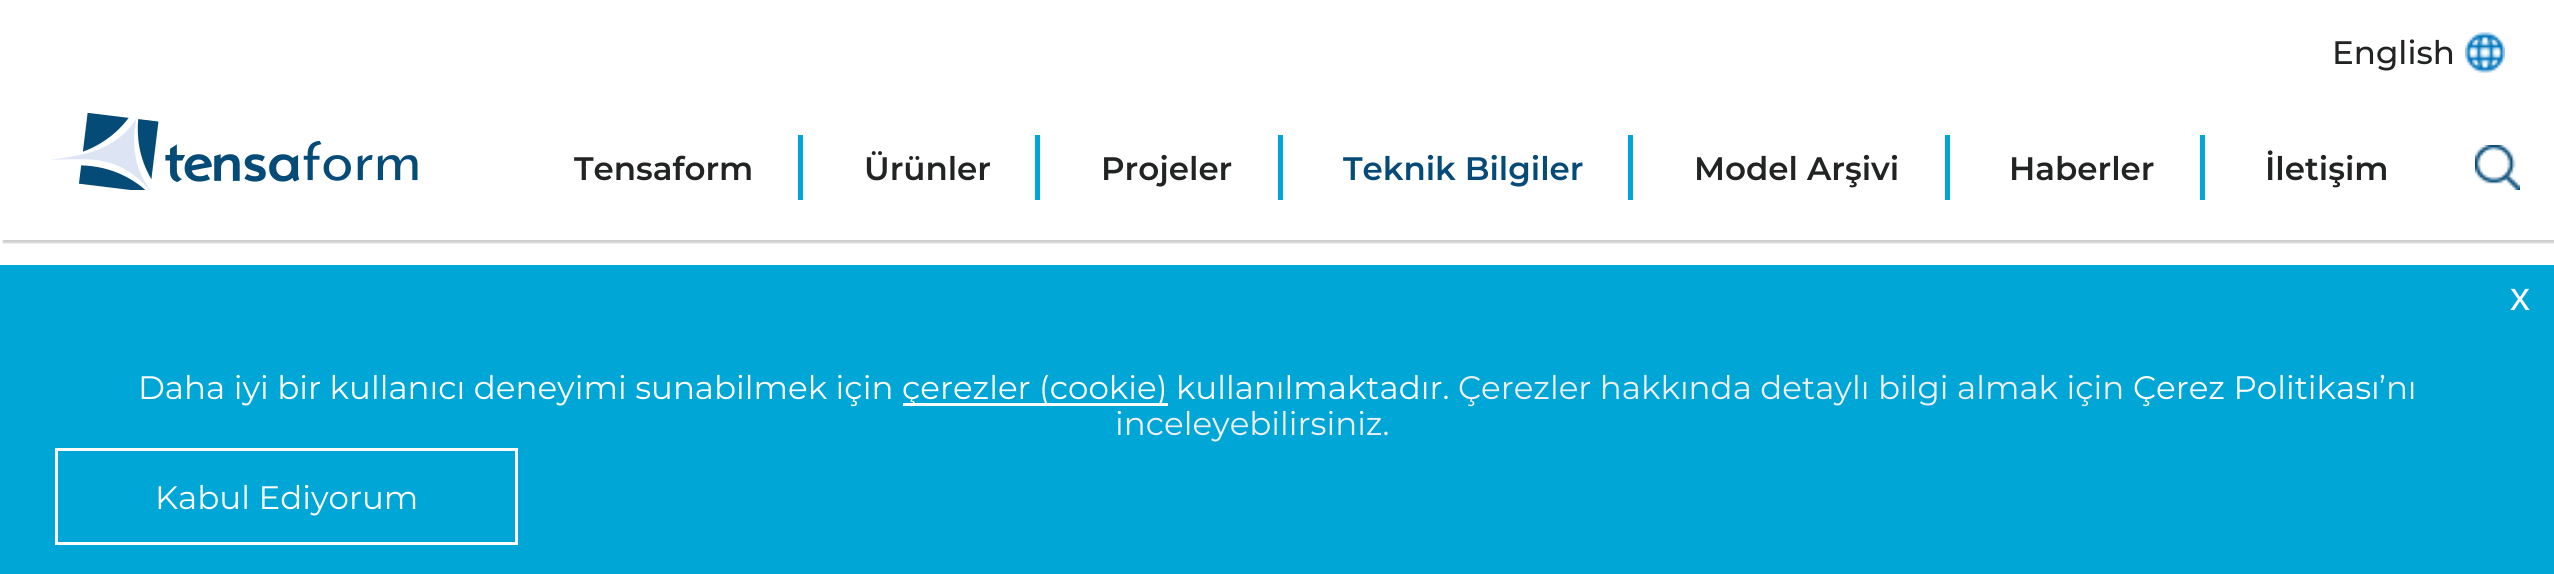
#include <cairo/cairo.h>
#include <math.h>
#include <stddef.h>

typedef struct { double x, y; const char *s; } line_t;
typedef struct { double x, y, w, h; unsigned color; } box_t;
static cairo_t *cr;

static void rgb(unsigned color)
{
	cairo_set_source_rgb(cr, (color >> 16) / 255.0, (color >> 8 & 255) / 255.0, (color & 255) / 255.0);
}

static void rrect(double x, double y, double w, double h, double r)
{
	cairo_new_sub_path(cr);
	cairo_arc(cr, x + w - r, y + h - r, r, 0, M_PI / 2);
	cairo_arc(cr, x + r, y + h - r, r, M_PI / 2, M_PI);
	cairo_arc(cr, x + r, y + r, r, M_PI, 1.5 * M_PI);
	cairo_arc(cr, x + w - r, y + r, r, 1.5 * M_PI, 2 * M_PI);
	cairo_close_path(cr);
}

static void soft_shadow(double x, double y, double w, double h, double r, double blur, double alpha)
{
	cairo_push_group_with_content(cr, CAIRO_CONTENT_ALPHA);
	cairo_set_operator(cr, CAIRO_OPERATOR_SOURCE);
	for (int i = 15; i >= -15 && fmin(w, h) + blur * i / 3 > 0; i -= 2) {
		double e = blur * i / 6;
		cairo_set_source_rgba(cr, 0, 0, 0, alpha * erfc((i - 1) / 8.5) / 2);
		rrect(x - e, y - e, w + 2 * e, h + 2 * e, fmax(0, fmin(r + e + blur * .6, fmin(w, h) / 2 + e)));
		cairo_fill(cr);
	}
	cairo_pattern_t *soft = cairo_pop_group(cr);
	cairo_mask(cr, soft);
	cairo_pattern_destroy(soft);
}

static void image(const char *path, double x, double y, double w, double h)
{
	cairo_surface_t *image = cairo_image_surface_create_from_png(path);
	cairo_save(cr);
	cairo_set_source_surface(cr, image, x, y);
	cairo_rectangle(cr, x, y, w, h);
	cairo_fill(cr);
	cairo_restore(cr);
	cairo_surface_destroy(image);
}

int main(void) {
	cairo_surface_t *surface = cairo_image_surface_create(CAIRO_FORMAT_RGB24, 2554, 574);
	cr = cairo_create(surface);
	cairo_font_options_t *options = cairo_font_options_create();
	cairo_font_options_set_hint_metrics(options, CAIRO_HINT_METRICS_OFF);
	cairo_font_options_set_hint_style(options, CAIRO_HINT_STYLE_NONE);
	cairo_set_font_options(cr, options);
	cairo_set_miter_limit(cr, 4);
	rgb(0xffffff);
	cairo_paint(cr);
	cairo_save(cr);
	cairo_rectangle(cr, 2, 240, 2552, 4);
	cairo_clip(cr);
	rgb(0x000000);
	soft_shadow(3, 3, 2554, 240, 0, 1, 0.2);
	cairo_restore(cr);
	image("img/1.png", 2465, 32, 40, 41);
	image("img/2.png", 51, 113, 367, 77);
	{
		static const box_t items[] = {
			{798, 135, 5, 65, 0x00a6d6},
			{1035, 135, 5, 65, 0x00a6d6},
			{1278, 135, 5, 65, 0x00a6d6},
			{1628, 135, 5, 65, 0x00a6d6},
			{1945, 135, 5, 65, 0x00a6d6},
			{2200, 135, 5, 65, 0x00a6d6},
		};
		for (size_t i = 0; i < sizeof items / sizeof *items; i++) {
			rgb(items[i].color);
			cairo_rectangle(cr, items[i].x, items[i].y, items[i].w, items[i].h);
			cairo_fill(cr);
		}
	}
	image("img/3.png", 2475, 145, 45, 45);
	cairo_rectangle(cr, 0, 265, 2554, 309);
	cairo_fill(cr);
	rgb(0xffffff);
	cairo_rectangle(cr, 903, 403, 265, 3);
	cairo_fill(cr);
	cairo_rectangle(cr, 56.5, 449.5, 460, 94);
	cairo_set_line_width(cr, 3);
	cairo_stroke(cr);
	cairo_select_font_face(cr, "Montserrat Medium", CAIRO_FONT_SLANT_NORMAL, CAIRO_FONT_WEIGHT_NORMAL);
	cairo_set_font_size(cr, 32.5);
	rgb(0x212422);
	cairo_move_to(cr, 2332, 64);
	cairo_show_text(cr, "English");
	cairo_select_font_face(cr, "Montserrat SemiBold", CAIRO_FONT_SLANT_NORMAL, CAIRO_FONT_WEIGHT_NORMAL);
	{
		static const line_t items[] = {
			{574, 180, "Tensaform"},
			{864, 180, "Ürünler"},
			{1101, 180, "Projeler"},
		};
		for (size_t i = 0; i < sizeof items / sizeof *items; i++) {
			cairo_move_to(cr, items[i].x, items[i].y);
			cairo_show_text(cr, items[i].s);
		}
	}
	rgb(0x064b77);
	cairo_move_to(cr, 1343, 180);
	cairo_show_text(cr, "Teknik Bilgiler");
	rgb(0x212422);
	{
		static const line_t items[] = {
			{1694, 180, "Model Arşivi"},
			{2009, 180, "Haberler"},
			{2265, 180, "İletişim"},
		};
		for (size_t i = 0; i < sizeof items / sizeof *items; i++) {
			cairo_move_to(cr, items[i].x, items[i].y);
			cairo_show_text(cr, items[i].s);
		}
	}
	cairo_select_font_face(cr, "Liberation Sans", CAIRO_FONT_SLANT_NORMAL, CAIRO_FONT_WEIGHT_NORMAL);
	cairo_set_font_size(cr, 40);
	rgb(0xffffff);
	cairo_move_to(cr, 2510, 310);
	cairo_show_text(cr, "x");
	cairo_select_font_face(cr, "Montserrat", CAIRO_FONT_SLANT_NORMAL, CAIRO_FONT_WEIGHT_NORMAL);
	cairo_set_font_size(cr, 32.5);
	cairo_move_to(cr, 138, 399);
	cairo_show_text(cr, "Daha iyi bir kullanıcı deneyimi sunabilmek için");
	cairo_move_to(cr, 902, 399);
	cairo_show_text(cr, "çerezler (cookie) kullanılmaktadır.");
	rgb(0xefefef);
	cairo_move_to(cr, 1458, 399);
	cairo_show_text(cr, "Çerezler hakkında detaylı bilgi almak için");
	rgb(0xffffff);
	cairo_move_to(cr, 2133, 399);
	cairo_show_text(cr, "Çerez Politikası");
	rgb(0xefefef);
	cairo_move_to(cr, 2379, 399);
	cairo_show_text(cr, "’nı");
	cairo_move_to(cr, 1115, 435);
	cairo_show_text(cr, "inceleyebilirsiniz.");
	rgb(0xffffff);
	cairo_move_to(cr, 155, 509);
	cairo_show_text(cr, "Kabul Ediyorum");
	cairo_surface_write_to_png(surface, "page.png");
	cairo_font_options_destroy(options);
	cairo_destroy(cr);
	cairo_surface_destroy(surface);
	return 0;
}
